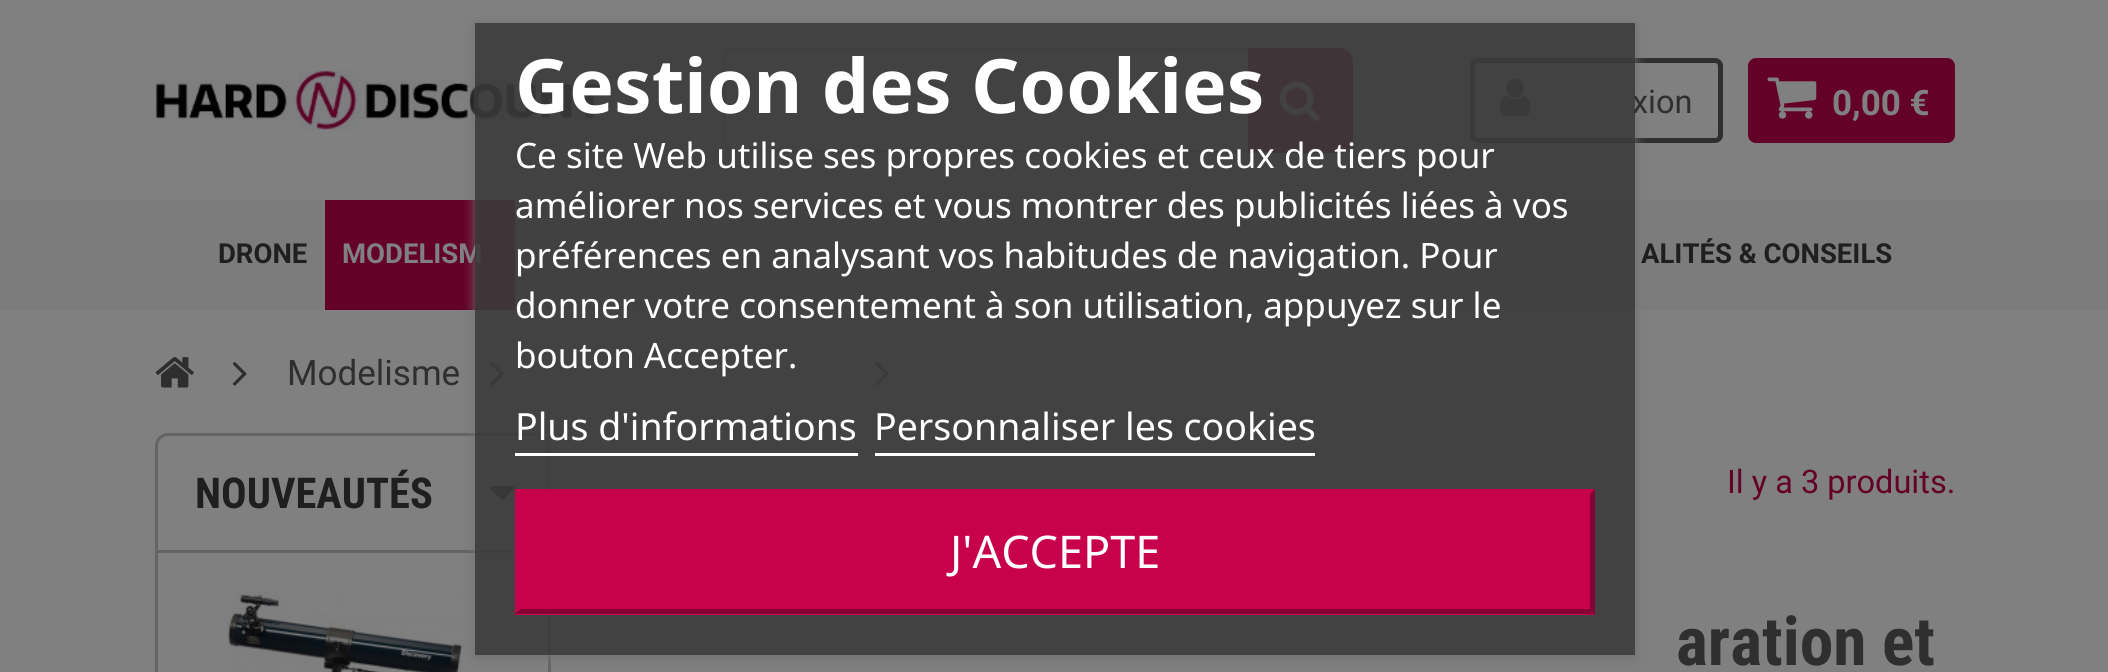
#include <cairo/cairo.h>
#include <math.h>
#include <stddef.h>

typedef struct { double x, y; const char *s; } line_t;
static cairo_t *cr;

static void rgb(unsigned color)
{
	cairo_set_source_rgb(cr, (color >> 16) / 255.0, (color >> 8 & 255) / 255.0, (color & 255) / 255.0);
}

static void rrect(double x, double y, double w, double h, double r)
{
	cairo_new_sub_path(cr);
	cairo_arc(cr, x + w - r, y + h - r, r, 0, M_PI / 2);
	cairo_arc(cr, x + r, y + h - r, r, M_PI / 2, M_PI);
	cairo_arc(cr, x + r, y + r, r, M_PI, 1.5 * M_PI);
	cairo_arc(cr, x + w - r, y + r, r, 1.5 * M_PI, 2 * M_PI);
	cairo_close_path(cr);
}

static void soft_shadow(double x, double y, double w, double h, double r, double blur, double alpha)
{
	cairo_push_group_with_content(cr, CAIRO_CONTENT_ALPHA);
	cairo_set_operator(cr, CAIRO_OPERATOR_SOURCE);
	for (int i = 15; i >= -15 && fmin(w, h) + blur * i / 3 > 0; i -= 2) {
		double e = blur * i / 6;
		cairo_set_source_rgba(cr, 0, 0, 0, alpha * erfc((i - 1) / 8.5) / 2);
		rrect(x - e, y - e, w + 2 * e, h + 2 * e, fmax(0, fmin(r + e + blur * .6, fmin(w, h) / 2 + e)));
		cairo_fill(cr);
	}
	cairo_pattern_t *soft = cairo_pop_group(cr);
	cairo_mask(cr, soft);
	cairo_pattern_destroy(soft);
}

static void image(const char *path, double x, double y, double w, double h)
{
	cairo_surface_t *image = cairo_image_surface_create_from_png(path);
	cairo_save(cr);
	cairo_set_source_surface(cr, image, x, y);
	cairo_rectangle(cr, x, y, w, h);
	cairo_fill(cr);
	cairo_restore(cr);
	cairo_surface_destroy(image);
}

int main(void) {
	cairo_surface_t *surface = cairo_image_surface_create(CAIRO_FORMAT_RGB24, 2108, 672);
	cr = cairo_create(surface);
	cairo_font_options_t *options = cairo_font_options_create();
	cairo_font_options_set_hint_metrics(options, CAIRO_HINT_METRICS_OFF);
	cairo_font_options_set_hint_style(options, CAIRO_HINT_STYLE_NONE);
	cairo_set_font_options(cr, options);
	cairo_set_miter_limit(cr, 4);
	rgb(0x808080);
	cairo_paint(cr);
	image("img/1.png", 155, 70, 450, 60);
	rrect(724.5, 49.5, 627, 102, 11.5);
	rgb(0x646464);
	cairo_set_line_width(cr, 3);
	cairo_stroke(cr);
	rgb(0x640126);
	cairo_new_path(cr);
	cairo_move_to(cr, 1248, 48);
	cairo_line_to(cr, 1340, 48);
	cairo_curve_to(cr, 1347, 48, 1353, 54, 1353, 61);
	cairo_line_to(cr, 1353, 140);
	cairo_curve_to(cr, 1353, 147, 1347, 153, 1340, 153);
	cairo_line_to(cr, 1248, 153);
	cairo_close_path(cr);
	cairo_fill(cr);
	image("img/2.png", 1280, 81, 40, 41);
	rrect(1472.5, 60.5, 248, 80, 5.5);
	rgb(0x2f2f2f);
	cairo_set_line_width(cr, 5);
	cairo_stroke(cr);
	image("img/3.png", 1500, 79, 31, 37);
	rgb(0x7c7c7c);
	cairo_rectangle(cr, 0, 200, 2108, 110);
	cairo_fill(cr);
	rgb(0x640127);
	cairo_rectangle(cr, 325, 200, 190, 110);
	cairo_fill(cr);
	image("img/7.png", 490, 362, 15, 24);
	image("img/7.png", 875, 362, 15, 24);
	cairo_new_path(cr);
	cairo_move_to(cr, 168, 434.5);
	cairo_line_to(cr, 537, 434.5);
	cairo_curve_to(cr, 543.5, 434.5, 548.5, 439.5, 548.5, 446);
	cairo_line_to(cr, 548.5, 551.5);
	cairo_line_to(cr, 156.5, 551.5);
	cairo_line_to(cr, 156.5, 446);
	cairo_curve_to(cr, 156.5, 439.5, 161.5, 434.5, 168, 434.5);
	cairo_close_path(cr);
	rgb(0x646464);
	cairo_set_line_width(cr, 3);
	cairo_stroke(cr);
	image("img/8.png", 490, 486, 25, 14);
	cairo_rectangle(cr, 548, 615, 3, 57);
	cairo_fill(cr);
	image("img/9.png", 227, 590, 236, 82);
	cairo_save(cr);
	cairo_set_fill_rule(cr, CAIRO_FILL_RULE_EVEN_ODD);
	cairo_new_path(cr);
	cairo_move_to(cr, 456, 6);
	cairo_line_to(cr, 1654, 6);
	cairo_line_to(cr, 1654, 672);
	cairo_line_to(cr, 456, 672);
	cairo_close_path(cr);
	cairo_move_to(cr, 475, 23);
	cairo_line_to(cr, 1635, 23);
	cairo_line_to(cr, 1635, 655);
	cairo_line_to(cr, 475, 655);
	cairo_close_path(cr);
	cairo_clip(cr);
	rgb(0x707070);
	soft_shadow(475, 25, 1160, 633, 0, 6, 1);
	cairo_restore(cr);
	rgb(0x640126);
	rrect(1748, 58, 207, 85, 8);
	cairo_fill(cr);
	image("img/4.png", 1767, 77, 50, 42);
	image("img/5.png", 155, 357, 39, 31);
	image("img/6.png", 232, 362, 15, 24);
	rgb(0x646464);
	cairo_rectangle(cr, 155, 553, 3, 119);
	cairo_fill(cr);
	cairo_select_font_face(cr, "Roboto", CAIRO_FONT_SLANT_NORMAL, CAIRO_FONT_WEIGHT_NORMAL);
	cairo_set_font_size(cr, 32.5);
	rgb(0x2f2f2f);
	cairo_move_to(cr, 1632, 113);
	cairo_show_text(cr, "xion");
	cairo_select_font_face(cr, "Roboto", CAIRO_FONT_SLANT_NORMAL, CAIRO_FONT_WEIGHT_BOLD);
	cairo_set_font_size(cr, 35);
	rgb(0x808080);
	cairo_move_to(cr, 1832, 115);
	cairo_show_text(cr, "0,00 €");
	cairo_set_font_size(cr, 27.5);
	rgb(0x1f1f1f);
	cairo_move_to(cr, 218, 263);
	cairo_show_text(cr, "DRONE");
	rgb(0x808080);
	cairo_move_to(cr, 342, 263);
	cairo_show_text(cr, "MODELISM");
	cairo_set_source_rgba(cr, 0.231, 0.231, 0.231, 0.9);
	cairo_rectangle(cr, 475, 23, 1160, 632);
	cairo_fill(cr);
	cairo_select_font_face(cr, "Noto Sans", CAIRO_FONT_SLANT_NORMAL, CAIRO_FONT_WEIGHT_NORMAL);
	cairo_set_font_size(cr, 37.5);
	rgb(0xffffff);
	cairo_move_to(cr, 874, 440);
	cairo_show_text(cr, "Personnaliser les cookies");
	cairo_rectangle(cr, 875, 453, 440, 3);
	cairo_fill(cr);
	cairo_move_to(cr, 515, 440);
	cairo_show_text(cr, "Plus d'informations");
	cairo_rectangle(cr, 515, 453, 343, 3);
	cairo_fill(cr);
	cairo_set_font_size(cr, 35);
	{
		static const line_t items[] = {
			{515, 368, "bouton Accepter."},
			{515, 318, "donner votre consentement à son utilisation, appuyez sur le"},
			{515, 268, "préférences en analysant vos habitudes de navigation. Pour"},
			{515, 218, "améliorer nos services et vous montrer des publicités liées à vos"},
			{515, 168, "Ce site Web utilise ses propres cookies et ceux de tiers pour"},
		};
		for (size_t i = 0; i < sizeof items / sizeof *items; i++) {
			cairo_move_to(cr, items[i].x, items[i].y);
			cairo_show_text(cr, items[i].s);
		}
	}
	cairo_select_font_face(cr, "Noto Sans", CAIRO_FONT_SLANT_NORMAL, CAIRO_FONT_WEIGHT_BOLD);
	cairo_set_font_size(cr, 75);
	cairo_move_to(cr, 515, 113);
	cairo_show_text(cr, "Gestion des Cookies");
	rgb(0xc7014c);
	cairo_rectangle(cr, 515, 490, 1080, 125);
	cairo_fill(cr);
	cairo_select_font_face(cr, "Noto Sans", CAIRO_FONT_SLANT_NORMAL, CAIRO_FONT_WEIGHT_NORMAL);
	cairo_set_font_size(cr, 45);
	rgb(0xffffff);
	cairo_move_to(cr, 950, 568);
	cairo_show_text(cr, "J'ACCEPTE");
	rgb(0xc7014c);
	cairo_new_path(cr);
	cairo_move_to(cr, 515, 489);
	cairo_line_to(cr, 1595, 489);
	cairo_line_to(cr, 1590, 494);
	cairo_line_to(cr, 520, 494);
	cairo_close_path(cr);
	cairo_fill(cr);
	rgb(0x850133);
	cairo_new_path(cr);
	cairo_move_to(cr, 1595, 489);
	cairo_line_to(cr, 1595, 614);
	cairo_line_to(cr, 1590, 609);
	cairo_line_to(cr, 1590, 494);
	cairo_close_path(cr);
	cairo_fill(cr);
	cairo_new_path(cr);
	cairo_move_to(cr, 1595, 614);
	cairo_line_to(cr, 515, 614);
	cairo_line_to(cr, 520, 609);
	cairo_line_to(cr, 1590, 609);
	cairo_close_path(cr);
	cairo_fill(cr);
	rgb(0xc7014c);
	cairo_new_path(cr);
	cairo_move_to(cr, 515, 614);
	cairo_line_to(cr, 515, 489);
	cairo_line_to(cr, 520, 494);
	cairo_line_to(cr, 520, 609);
	cairo_close_path(cr);
	cairo_fill(cr);
	cairo_select_font_face(cr, "Roboto", CAIRO_FONT_SLANT_NORMAL, CAIRO_FONT_WEIGHT_BOLD);
	cairo_set_font_size(cr, 27.5);
	rgb(0x1f1f1f);
	cairo_move_to(cr, 1641, 263);
	cairo_show_text(cr, "ALITÉS & CONSEILS");
	cairo_select_font_face(cr, "Roboto", CAIRO_FONT_SLANT_NORMAL, CAIRO_FONT_WEIGHT_NORMAL);
	cairo_set_font_size(cr, 35);
	rgb(0x2f2f2f);
	cairo_move_to(cr, 287, 385);
	cairo_show_text(cr, "Modelisme");
	cairo_select_font_face(cr, "Roboto Condensed", CAIRO_FONT_SLANT_NORMAL, CAIRO_FONT_WEIGHT_BOLD);
	cairo_set_font_size(cr, 42.5);
	rgb(0x1f1f1f);
	cairo_move_to(cr, 195, 508);
	cairo_show_text(cr, "NOUVEAUTÉS");
	cairo_select_font_face(cr, "Roboto", CAIRO_FONT_SLANT_NORMAL, CAIRO_FONT_WEIGHT_NORMAL);
	cairo_set_font_size(cr, 32.5);
	rgb(0x640126);
	cairo_move_to(cr, 1727, 493);
	cairo_show_text(cr, "Il y a 3 produits.");
	cairo_select_font_face(cr, "Roboto Condensed", CAIRO_FONT_SLANT_NORMAL, CAIRO_FONT_WEIGHT_BOLD);
	cairo_set_font_size(cr, 67.5);
	rgb(0x2f2f2f);
	cairo_move_to(cr, 1676, 665);
	cairo_show_text(cr, "aration et");
	cairo_surface_write_to_png(surface, "page.png");
	cairo_font_options_destroy(options);
	cairo_destroy(cr);
	cairo_surface_destroy(surface);
	return 0;
}
